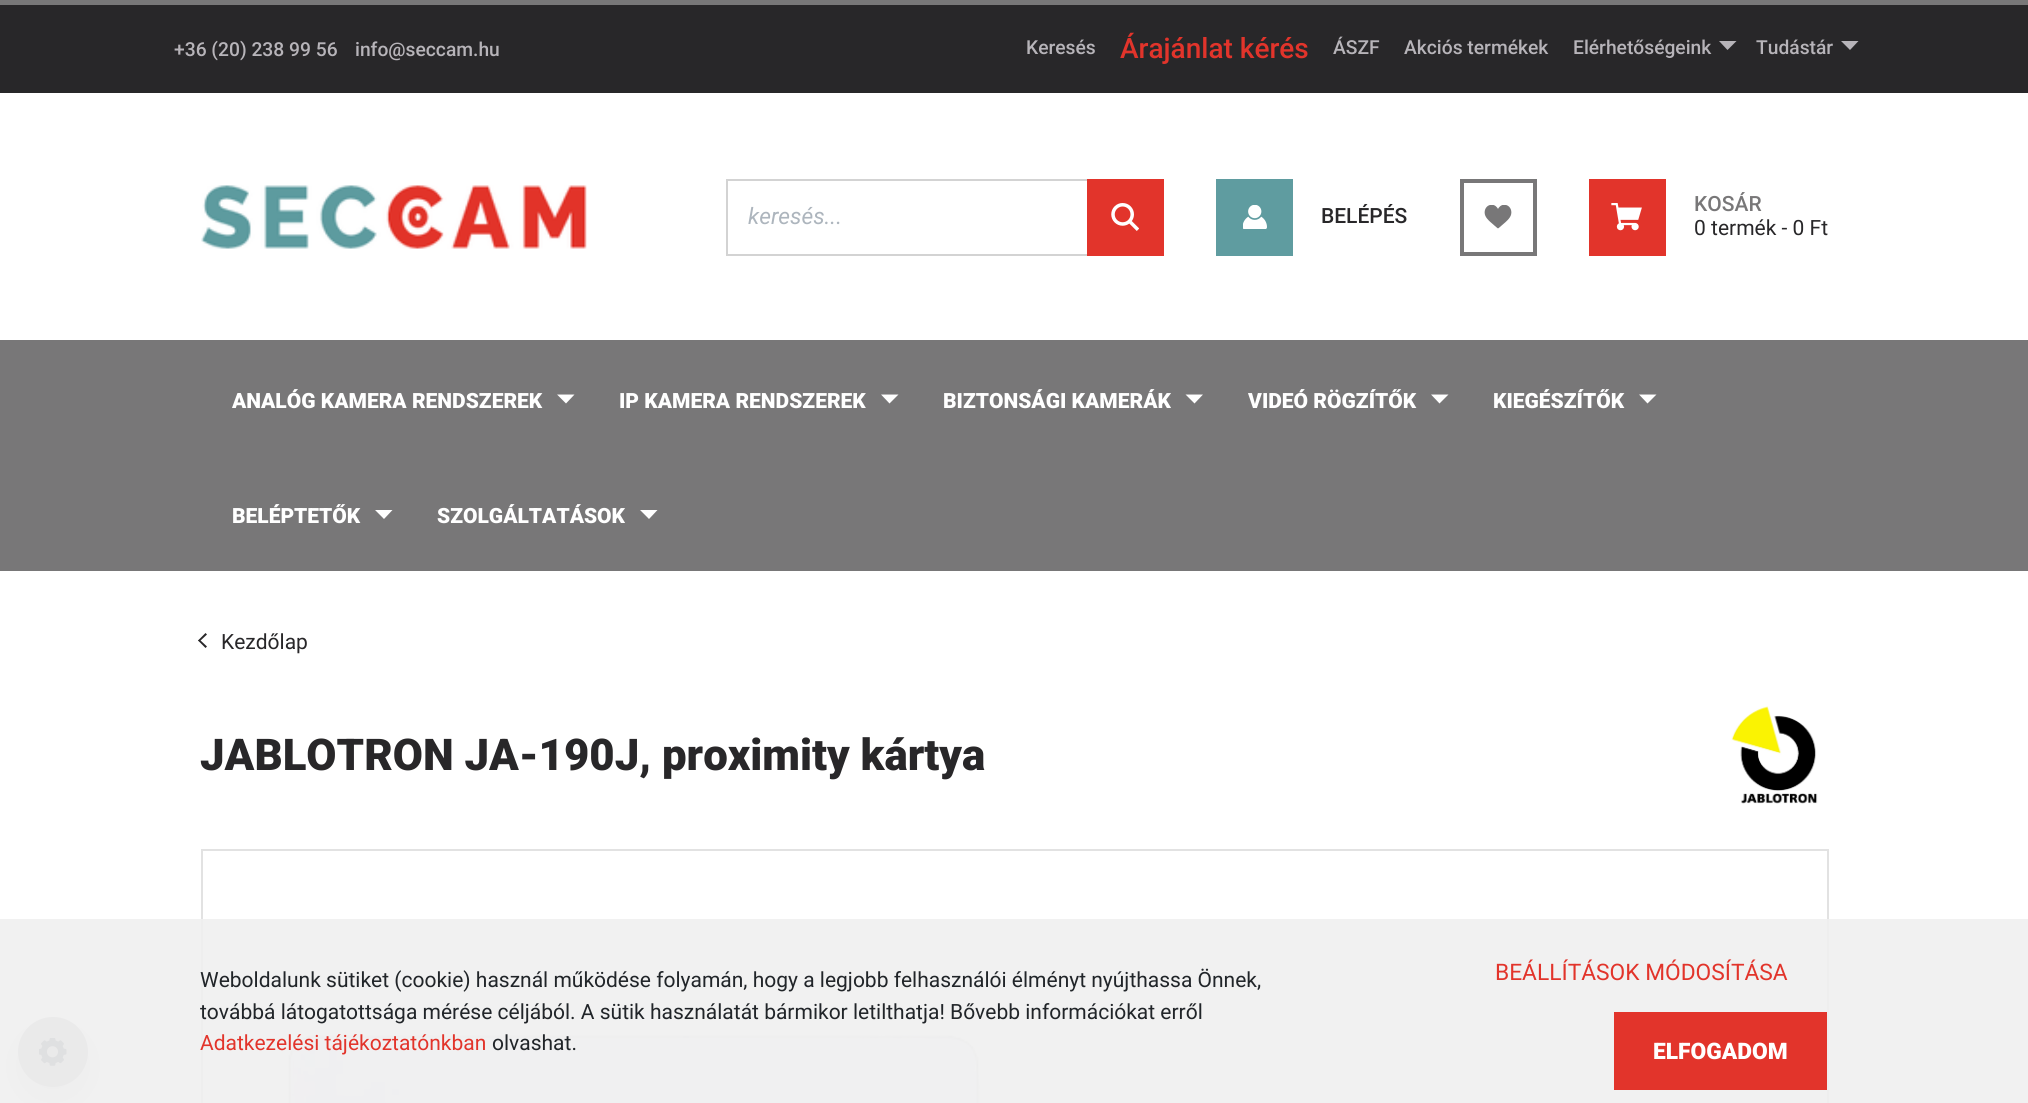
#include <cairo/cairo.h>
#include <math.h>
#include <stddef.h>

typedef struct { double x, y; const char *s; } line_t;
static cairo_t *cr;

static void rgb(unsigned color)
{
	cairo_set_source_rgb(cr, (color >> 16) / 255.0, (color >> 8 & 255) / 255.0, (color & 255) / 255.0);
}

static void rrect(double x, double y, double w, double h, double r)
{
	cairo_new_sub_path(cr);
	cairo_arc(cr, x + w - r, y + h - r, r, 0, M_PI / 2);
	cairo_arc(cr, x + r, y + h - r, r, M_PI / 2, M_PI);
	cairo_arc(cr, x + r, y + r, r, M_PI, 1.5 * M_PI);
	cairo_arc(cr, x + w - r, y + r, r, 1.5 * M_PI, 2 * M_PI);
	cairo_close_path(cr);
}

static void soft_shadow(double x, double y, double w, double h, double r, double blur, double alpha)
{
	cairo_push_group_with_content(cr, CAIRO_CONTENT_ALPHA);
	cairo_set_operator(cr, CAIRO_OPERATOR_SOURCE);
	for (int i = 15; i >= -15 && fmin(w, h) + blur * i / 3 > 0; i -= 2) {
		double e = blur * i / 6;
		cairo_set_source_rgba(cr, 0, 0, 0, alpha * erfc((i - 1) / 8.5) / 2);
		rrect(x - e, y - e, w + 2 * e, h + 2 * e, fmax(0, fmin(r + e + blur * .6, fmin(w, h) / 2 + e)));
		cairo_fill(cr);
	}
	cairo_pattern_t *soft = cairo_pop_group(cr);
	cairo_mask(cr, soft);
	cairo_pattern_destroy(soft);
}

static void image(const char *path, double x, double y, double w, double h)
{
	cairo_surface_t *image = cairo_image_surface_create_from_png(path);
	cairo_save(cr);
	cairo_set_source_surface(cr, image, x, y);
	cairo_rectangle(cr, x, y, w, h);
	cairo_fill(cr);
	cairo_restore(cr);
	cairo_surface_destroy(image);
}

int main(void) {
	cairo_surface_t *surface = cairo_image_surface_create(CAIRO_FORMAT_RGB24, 2028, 1103);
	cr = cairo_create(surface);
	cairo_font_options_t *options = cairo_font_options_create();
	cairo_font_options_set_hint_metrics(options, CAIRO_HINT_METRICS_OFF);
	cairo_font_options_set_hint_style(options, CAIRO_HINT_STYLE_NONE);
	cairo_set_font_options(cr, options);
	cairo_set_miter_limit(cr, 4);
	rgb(0xffffff);
	cairo_paint(cr);
	rgb(0x787778);
	cairo_rectangle(cr, 0, 0, 2028, 5);
	cairo_fill(cr);
	rgb(0x282729);
	cairo_rectangle(cr, 0, 5, 2028, 88);
	cairo_fill(cr);
	rgb(0xb7b4b9);
	cairo_new_path(cr);
	cairo_move_to(cr, 1719, 41);
	cairo_line_to(cr, 1736.5, 41);
	cairo_line_to(cr, 1727.5, 50);
	cairo_close_path(cr);
	cairo_fill(cr);
	cairo_new_path(cr);
	cairo_move_to(cr, 1841, 41);
	cairo_line_to(cr, 1858.5, 41);
	cairo_line_to(cr, 1850, 50);
	cairo_close_path(cr);
	cairo_fill(cr);
	image("img/1.png", 201, 185, 386, 64);
	cairo_rectangle(cr, 727, 180, 436, 75);
	rgb(0xd3d3d3);
	cairo_stroke(cr);
	rgb(0xe2342b);
	cairo_rectangle(cr, 1087, 179, 77, 77);
	cairo_fill(cr);
	image("img/2.png", 1111, 203, 28, 28);
	rgb(0x5f9ca0);
	cairo_rectangle(cr, 1216, 179, 77, 77);
	cairo_fill(cr);
	image("img/3.png", 1243, 205, 24, 24);
	cairo_rectangle(cr, 1462, 181, 73, 73);
	rgb(0x787778);
	cairo_set_line_width(cr, 4);
	cairo_stroke(cr);
	image("img/4.png", 1484, 205, 28, 24);
	rgb(0xe2342b);
	cairo_rectangle(cr, 1589, 179, 77, 77);
	cairo_fill(cr);
	image("img/5.png", 1611, 203, 31, 28);
	rgb(0x787778);
	cairo_rectangle(cr, 0, 340, 2028, 231);
	cairo_fill(cr);
	rgb(0xffffff);
	cairo_new_path(cr);
	cairo_move_to(cr, 557, 394.5);
	cairo_line_to(cr, 574.5, 394.5);
	cairo_line_to(cr, 566, 403.5);
	cairo_close_path(cr);
	cairo_fill(cr);
	cairo_new_path(cr);
	cairo_move_to(cr, 881, 394.5);
	cairo_line_to(cr, 898.5, 394.5);
	cairo_line_to(cr, 889.5, 403.5);
	cairo_close_path(cr);
	cairo_fill(cr);
	cairo_new_path(cr);
	cairo_move_to(cr, 1185.5, 394.5);
	cairo_line_to(cr, 1203, 394.5);
	cairo_line_to(cr, 1194.5, 403.5);
	cairo_close_path(cr);
	cairo_fill(cr);
	cairo_new_path(cr);
	cairo_move_to(cr, 1431, 394.5);
	cairo_line_to(cr, 1448.5, 394.5);
	cairo_line_to(cr, 1439.5, 403.5);
	cairo_close_path(cr);
	cairo_fill(cr);
	cairo_new_path(cr);
	cairo_move_to(cr, 1639, 394.5);
	cairo_line_to(cr, 1656.5, 394.5);
	cairo_line_to(cr, 1647.5, 403.5);
	cairo_close_path(cr);
	cairo_fill(cr);
	cairo_new_path(cr);
	cairo_move_to(cr, 375, 510);
	cairo_line_to(cr, 392.5, 510);
	cairo_line_to(cr, 384, 519);
	cairo_close_path(cr);
	cairo_fill(cr);
	cairo_new_path(cr);
	cairo_move_to(cr, 640, 510);
	cairo_line_to(cr, 657.5, 510);
	cairo_line_to(cr, 649, 519);
	cairo_close_path(cr);
	cairo_fill(cr);
	rgb(0x282729);
	cairo_new_path(cr);
	cairo_move_to(cr, 207, 646.5);
	cairo_line_to(cr, 205.5, 648);
	cairo_line_to(cr, 198, 640.5);
	cairo_line_to(cr, 199.5, 639.5);
	cairo_close_path(cr);
	cairo_fill(cr);
	cairo_new_path(cr);
	cairo_move_to(cr, 207, 634.5);
	cairo_line_to(cr, 199.5, 641.5);
	cairo_line_to(cr, 198, 640.5);
	cairo_line_to(cr, 205.5, 633);
	cairo_close_path(cr);
	cairo_fill(cr);
	image("img/6.png", 1731, 706, 87, 98);
	cairo_rectangle(cr, 202, 850, 1626, 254);
	rgb(0xe2e2e2);
	cairo_set_line_width(cr, 2);
	cairo_stroke(cr);
	image("img/7.png", 288, 1035, 692, 68);
	rgb(0x282729);
	soft_shadow(18, 1031, 70, 70, 35, 14, 0.15);
	rgb(0xb7b4b9);
	cairo_arc(cr, 53, 1052, 35, 0, 2 * M_PI);
	cairo_fill(cr);
	image("img/8.png", 39, 1038, 28, 28);
	cairo_set_source_rgba(cr, 0.941, 0.941, 0.941, 0.9);
	cairo_rectangle(cr, 0, 919, 2028, 184);
	cairo_fill(cr);
	rgb(0xe2342b);
	cairo_rectangle(cr, 1614, 1012, 213, 78);
	cairo_fill(cr);
	cairo_select_font_face(cr, "Roboto Medium", CAIRO_FONT_SLANT_NORMAL, CAIRO_FONT_WEIGHT_NORMAL);
	cairo_set_font_size(cr, 19.25);
	rgb(0xb7b4b9);
	{
		static const line_t items[] = {
			{174, 56, "+36 (20) 238 99 56"},
			{355, 56, "info@seccam.hu"},
			{1026, 54, "Keresés"},
		};
		for (size_t i = 0; i < sizeof items / sizeof *items; i++) {
			cairo_move_to(cr, items[i].x, items[i].y);
			cairo_show_text(cr, items[i].s);
		}
	}
	cairo_set_font_size(cr, 28);
	rgb(0xe2342b);
	cairo_move_to(cr, 1120, 58);
	cairo_show_text(cr, "Árajánlat kérés");
	cairo_set_font_size(cr, 19.25);
	rgb(0xb7b4b9);
	{
		static const line_t items[] = {
			{1333, 54, "ÁSZF"},
			{1404, 54, "Akciós termékek"},
			{1573, 54, "Elérhetőségeink"},
			{1756, 54, "Tudástár"},
		};
		for (size_t i = 0; i < sizeof items / sizeof *items; i++) {
			cairo_move_to(cr, items[i].x, items[i].y);
			cairo_show_text(cr, items[i].s);
		}
	}
	cairo_select_font_face(cr, "Roboto", CAIRO_FONT_SLANT_ITALIC, CAIRO_FONT_WEIGHT_NORMAL);
	cairo_set_font_size(cr, 22.75);
	rgb(0xadb5bd);
	cairo_move_to(cr, 748, 224);
	cairo_show_text(cr, "keresés...");
	cairo_select_font_face(cr, "Roboto Medium", CAIRO_FONT_SLANT_NORMAL, CAIRO_FONT_WEIGHT_NORMAL);
	cairo_set_font_size(cr, 21);
	rgb(0x282729);
	cairo_move_to(cr, 1321, 223);
	cairo_show_text(cr, "BELÉPÉS");
	rgb(0x787778);
	cairo_move_to(cr, 1694, 211);
	cairo_show_text(cr, "KOSÁR");
	cairo_select_font_face(cr, "Roboto", CAIRO_FONT_SLANT_NORMAL, CAIRO_FONT_WEIGHT_NORMAL);
	rgb(0x282729);
	cairo_move_to(cr, 1694, 235);
	cairo_show_text(cr, "0 termék - 0 Ft");
	cairo_select_font_face(cr, "Roboto Black", CAIRO_FONT_SLANT_NORMAL, CAIRO_FONT_WEIGHT_NORMAL);
	rgb(0xffffff);
	{
		static const line_t items[] = {
			{232, 408, "ANALÓG KAMERA RENDSZEREK"},
			{619, 408, "IP KAMERA RENDSZEREK"},
			{943, 408, "BIZTONSÁGI KAMERÁK"},
			{1248, 408, "VIDEÓ RÖGZÍTŐK"},
			{1493, 408, "KIEGÉSZÍTŐK"},
			{232, 523, "BELÉPTETŐK"},
			{437, 523, "SZOLGÁLTATÁSOK"},
		};
		for (size_t i = 0; i < sizeof items / sizeof *items; i++) {
			cairo_move_to(cr, items[i].x, items[i].y);
			cairo_show_text(cr, items[i].s);
		}
	}
	cairo_select_font_face(cr, "Roboto", CAIRO_FONT_SLANT_NORMAL, CAIRO_FONT_WEIGHT_NORMAL);
	rgb(0x282729);
	cairo_move_to(cr, 221, 649);
	cairo_show_text(cr, "Kezdőlap");
	cairo_select_font_face(cr, "Roboto Black", CAIRO_FONT_SLANT_NORMAL, CAIRO_FONT_WEIGHT_NORMAL);
	cairo_set_font_size(cr, 43.75);
	cairo_move_to(cr, 200, 770);
	cairo_show_text(cr, "JABLOTRON JA-190J, proximity kártya");
	cairo_select_font_face(cr, "Roboto", CAIRO_FONT_SLANT_NORMAL, CAIRO_FONT_WEIGHT_NORMAL);
	cairo_set_font_size(cr, 21);
	rgb(0x212529);
	cairo_move_to(cr, 200, 987);
	cairo_show_text(cr, "Weboldalunk sütiket (cookie) használ működése folyamán, hogy a legjobb felhasználói élményt nyújthassa Önnek,");
	cairo_move_to(cr, 200, 1019);
	cairo_show_text(cr, "továbbá látogatottsága mérése céljából. A sütik használatát bármikor letilthatja! Bővebb információkat erről");
	rgb(0xe2342b);
	cairo_move_to(cr, 200, 1050);
	cairo_show_text(cr, "Adatkezelési tájékoztatónkban");
	rgb(0x212529);
	cairo_move_to(cr, 492, 1050);
	cairo_show_text(cr, "olvashat.");
	cairo_set_font_size(cr, 22.75);
	rgb(0xe2342b);
	cairo_move_to(cr, 1495, 980);
	cairo_show_text(cr, "BEÁLLÍTÁSOK MÓDOSÍTÁSA");
	cairo_select_font_face(cr, "Roboto Black", CAIRO_FONT_SLANT_NORMAL, CAIRO_FONT_WEIGHT_NORMAL);
	rgb(0xffffff);
	cairo_move_to(cr, 1653, 1059);
	cairo_show_text(cr, "ELFOGADOM");
	cairo_surface_write_to_png(surface, "page.png");
	cairo_font_options_destroy(options);
	cairo_destroy(cr);
	cairo_surface_destroy(surface);
	return 0;
}
